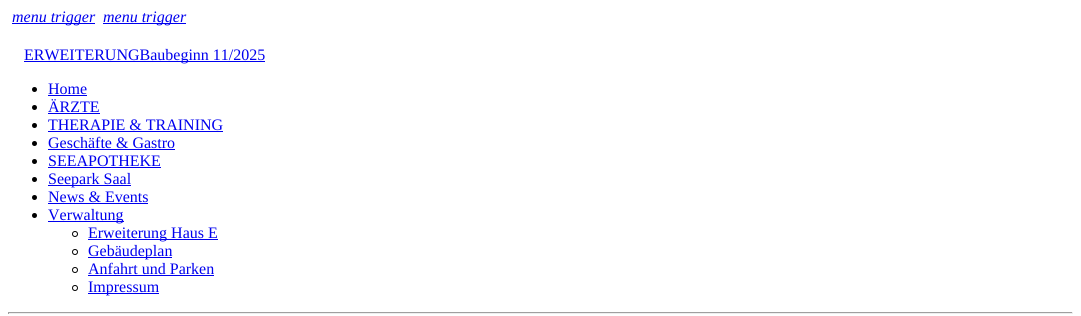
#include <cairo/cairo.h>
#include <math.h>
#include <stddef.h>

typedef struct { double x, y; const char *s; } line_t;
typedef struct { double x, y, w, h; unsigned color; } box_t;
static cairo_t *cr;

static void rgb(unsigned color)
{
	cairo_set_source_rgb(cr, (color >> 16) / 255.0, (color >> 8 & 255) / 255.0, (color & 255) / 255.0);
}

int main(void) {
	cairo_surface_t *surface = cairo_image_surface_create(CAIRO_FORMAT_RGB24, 1081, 316);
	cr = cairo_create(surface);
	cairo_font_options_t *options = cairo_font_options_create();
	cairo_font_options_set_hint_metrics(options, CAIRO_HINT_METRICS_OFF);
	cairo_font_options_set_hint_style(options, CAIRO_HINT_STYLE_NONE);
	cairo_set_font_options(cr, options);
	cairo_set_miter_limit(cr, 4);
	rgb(0xffffff);
	cairo_paint(cr);
	{
		static const box_t items[] = {
			{12, 23, 83, 1, 0x0000ee},
			{103, 23, 83, 1, 0x0000ee},
			{24, 61, 241, 1, 0x0000ee},
		};
		for (size_t i = 0; i < sizeof items / sizeof *items; i++) {
			rgb(items[i].color);
			cairo_rectangle(cr, items[i].x, items[i].y, items[i].w, items[i].h);
			cairo_fill(cr);
		}
	}
	rgb(0x000000);
	cairo_arc(cr, 34.5, 89.5, 2.5, 0, 2 * M_PI);
	cairo_fill(cr);
	rgb(0x0000ee);
	cairo_rectangle(cr, 48, 95, 39, 1);
	cairo_fill(cr);
	rgb(0x000000);
	cairo_arc(cr, 34.5, 107.5, 2.5, 0, 2 * M_PI);
	cairo_fill(cr);
	rgb(0x0000ee);
	cairo_rectangle(cr, 48, 113, 52, 1);
	cairo_fill(cr);
	rgb(0x000000);
	cairo_arc(cr, 34.5, 125.5, 2.5, 0, 2 * M_PI);
	cairo_fill(cr);
	rgb(0x0000ee);
	cairo_rectangle(cr, 48, 131, 175, 1);
	cairo_fill(cr);
	rgb(0x000000);
	cairo_arc(cr, 34.5, 143.5, 2.5, 0, 2 * M_PI);
	cairo_fill(cr);
	rgb(0x0000ee);
	cairo_rectangle(cr, 48, 149, 127, 1);
	cairo_fill(cr);
	rgb(0x000000);
	cairo_arc(cr, 34.5, 161.5, 2.5, 0, 2 * M_PI);
	cairo_fill(cr);
	rgb(0x0000ee);
	cairo_rectangle(cr, 48, 167, 113, 1);
	cairo_fill(cr);
	rgb(0x000000);
	cairo_arc(cr, 34.5, 179.5, 2.5, 0, 2 * M_PI);
	cairo_fill(cr);
	rgb(0x0000ee);
	cairo_rectangle(cr, 48, 185, 83, 1);
	cairo_fill(cr);
	rgb(0x000000);
	cairo_arc(cr, 34.5, 197.5, 2.5, 0, 2 * M_PI);
	cairo_fill(cr);
	rgb(0x0000ee);
	cairo_rectangle(cr, 48, 203, 100, 1);
	cairo_fill(cr);
	rgb(0x000000);
	cairo_arc(cr, 34.5, 215.5, 2.5, 0, 2 * M_PI);
	cairo_fill(cr);
	rgb(0x0000ee);
	cairo_rectangle(cr, 48, 221, 76, 1);
	cairo_fill(cr);
	cairo_arc(cr, 75, 234, 2.5, 0, 2 * M_PI);
	rgb(0x000000);
	cairo_set_line_width(cr, 1);
	cairo_stroke(cr);
	rgb(0x0000ee);
	cairo_rectangle(cr, 88, 239, 130, 1);
	cairo_fill(cr);
	cairo_arc(cr, 75, 252, 2.5, 0, 2 * M_PI);
	rgb(0x000000);
	cairo_stroke(cr);
	rgb(0x0000ee);
	cairo_rectangle(cr, 88, 257, 84, 1);
	cairo_fill(cr);
	cairo_arc(cr, 75, 270, 2.5, 0, 2 * M_PI);
	rgb(0x000000);
	cairo_stroke(cr);
	rgb(0x0000ee);
	cairo_rectangle(cr, 88, 275, 126, 1);
	cairo_fill(cr);
	cairo_arc(cr, 75, 288, 2.5, 0, 2 * M_PI);
	rgb(0x000000);
	cairo_stroke(cr);
	{
		static const box_t items[] = {
			{88, 293, 71, 1, 0x0000ee},
			{8, 312, 1065, 1, 0x9f9f9f},
			{1072, 312, 1, 2, 0xeeeeee},
			{8, 313, 1065, 1, 0xeeeeee},
			{8, 312, 1, 2, 0x9f9f9f},
		};
		for (size_t i = 0; i < sizeof items / sizeof *items; i++) {
			rgb(items[i].color);
			cairo_rectangle(cr, items[i].x, items[i].y, items[i].w, items[i].h);
			cairo_fill(cr);
		}
	}
	cairo_select_font_face(cr, "Liberation Serif", CAIRO_FONT_SLANT_ITALIC, CAIRO_FONT_WEIGHT_NORMAL);
	cairo_set_font_size(cr, 16);
	rgb(0x0000ee);
	cairo_move_to(cr, 12, 22);
	cairo_show_text(cr, "menu trigger");
	cairo_move_to(cr, 103, 22);
	cairo_show_text(cr, "menu trigger");
	cairo_select_font_face(cr, "Liberation Serif", CAIRO_FONT_SLANT_NORMAL, CAIRO_FONT_WEIGHT_NORMAL);
	{
		static const line_t items[] = {
			{24, 60, "ERWEITERUNGBaubeginn 11/2025"},
			{48, 94, "Home"},
			{48, 112, "ÄRZTE"},
			{48, 130, "THERAPIE & TRAINING"},
			{48, 148, "Geschäfte & Gastro"},
			{48, 166, "SEEAPOTHEKE"},
			{48, 184, "Seepark Saal"},
			{48, 202, "News & Events"},
			{48, 220, "Verwaltung"},
			{88, 238, "Erweiterung Haus E"},
			{88, 256, "Gebäudeplan"},
			{88, 274, "Anfahrt und Parken"},
			{88, 292, "Impressum"},
		};
		for (size_t i = 0; i < sizeof items / sizeof *items; i++) {
			cairo_move_to(cr, items[i].x, items[i].y);
			cairo_show_text(cr, items[i].s);
		}
	}
	cairo_surface_write_to_png(surface, "page.png");
	cairo_font_options_destroy(options);
	cairo_destroy(cr);
	cairo_surface_destroy(surface);
	return 0;
}
